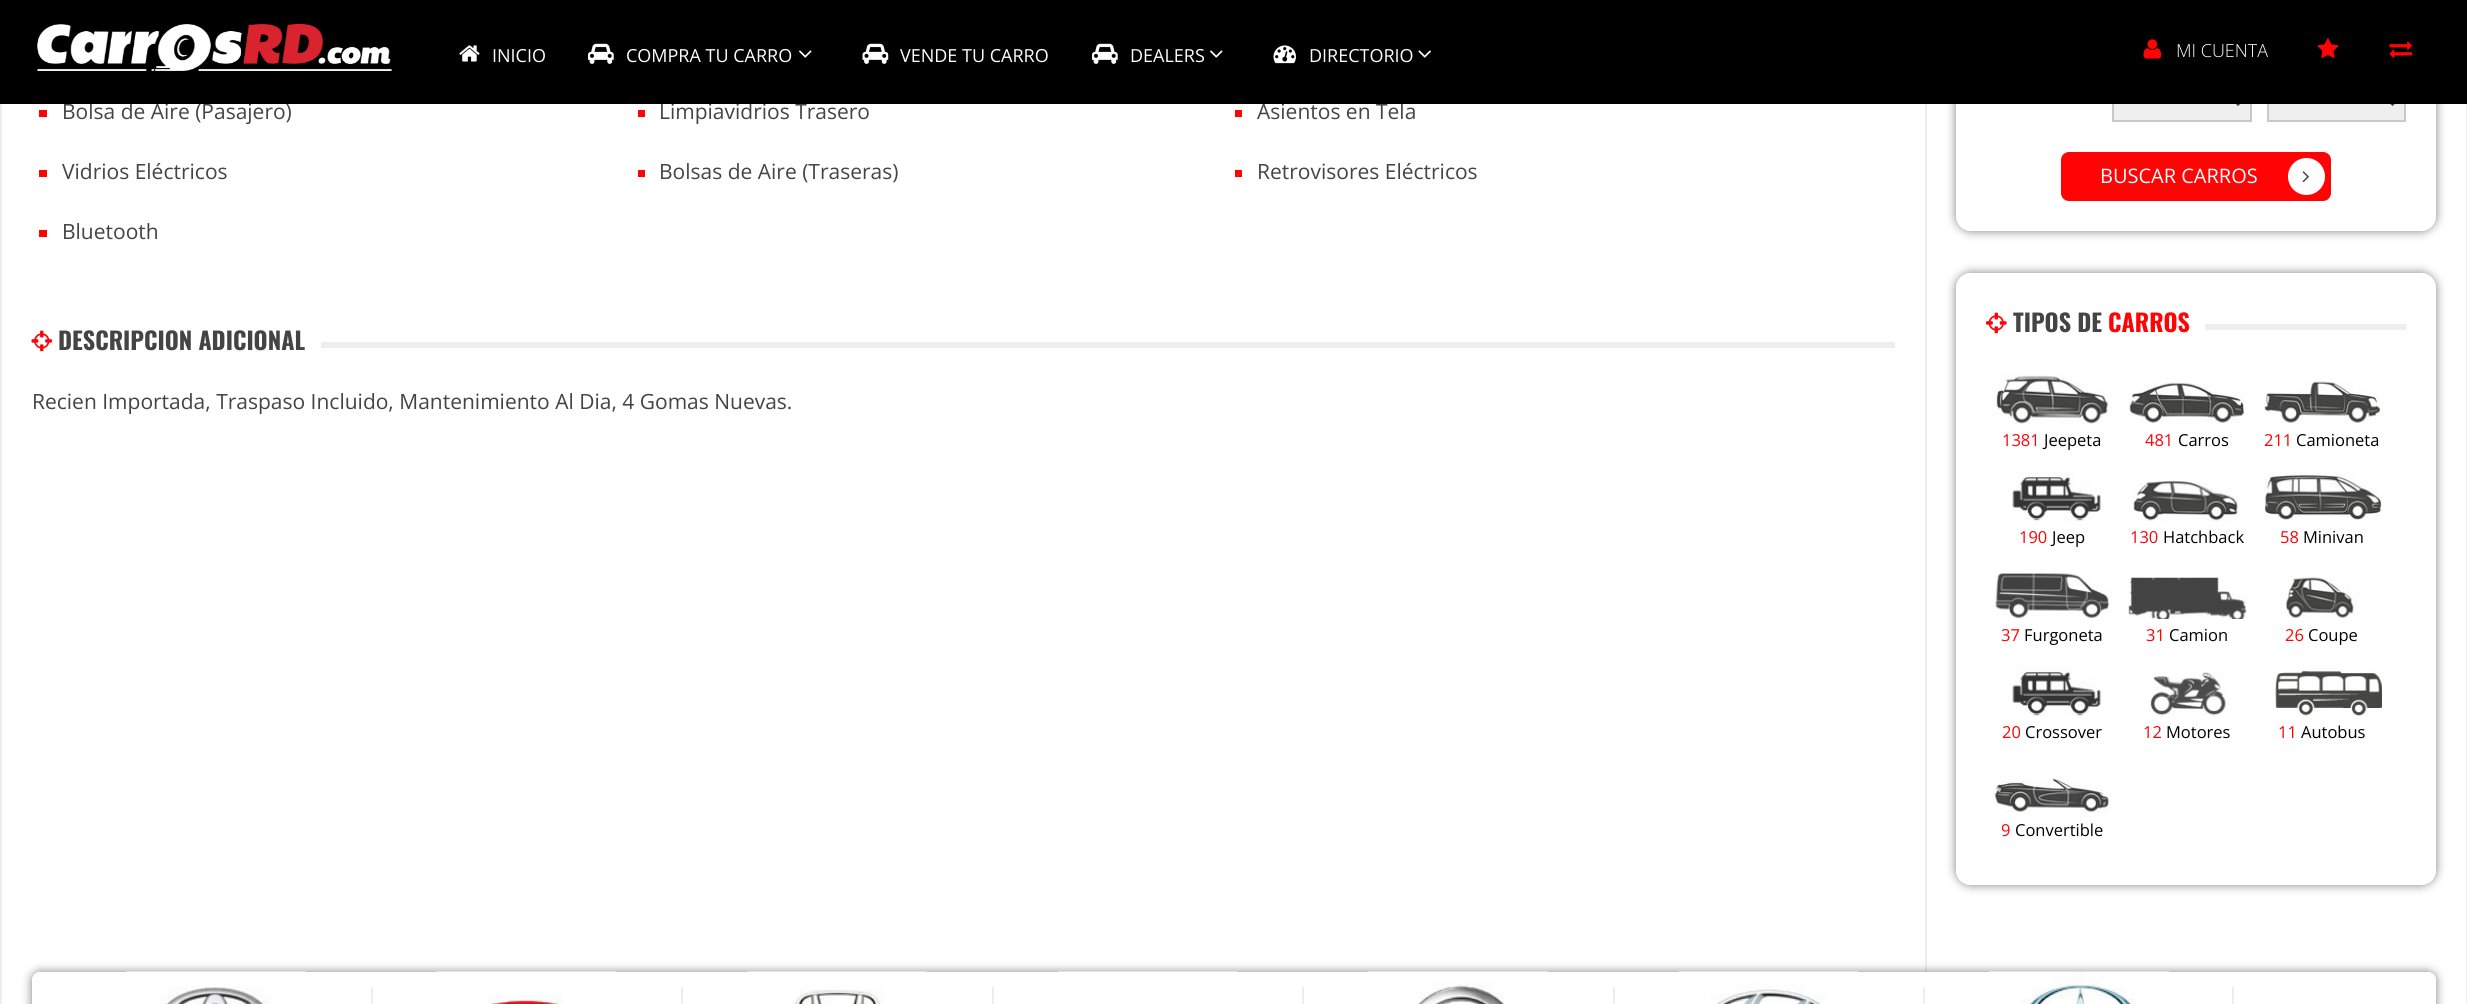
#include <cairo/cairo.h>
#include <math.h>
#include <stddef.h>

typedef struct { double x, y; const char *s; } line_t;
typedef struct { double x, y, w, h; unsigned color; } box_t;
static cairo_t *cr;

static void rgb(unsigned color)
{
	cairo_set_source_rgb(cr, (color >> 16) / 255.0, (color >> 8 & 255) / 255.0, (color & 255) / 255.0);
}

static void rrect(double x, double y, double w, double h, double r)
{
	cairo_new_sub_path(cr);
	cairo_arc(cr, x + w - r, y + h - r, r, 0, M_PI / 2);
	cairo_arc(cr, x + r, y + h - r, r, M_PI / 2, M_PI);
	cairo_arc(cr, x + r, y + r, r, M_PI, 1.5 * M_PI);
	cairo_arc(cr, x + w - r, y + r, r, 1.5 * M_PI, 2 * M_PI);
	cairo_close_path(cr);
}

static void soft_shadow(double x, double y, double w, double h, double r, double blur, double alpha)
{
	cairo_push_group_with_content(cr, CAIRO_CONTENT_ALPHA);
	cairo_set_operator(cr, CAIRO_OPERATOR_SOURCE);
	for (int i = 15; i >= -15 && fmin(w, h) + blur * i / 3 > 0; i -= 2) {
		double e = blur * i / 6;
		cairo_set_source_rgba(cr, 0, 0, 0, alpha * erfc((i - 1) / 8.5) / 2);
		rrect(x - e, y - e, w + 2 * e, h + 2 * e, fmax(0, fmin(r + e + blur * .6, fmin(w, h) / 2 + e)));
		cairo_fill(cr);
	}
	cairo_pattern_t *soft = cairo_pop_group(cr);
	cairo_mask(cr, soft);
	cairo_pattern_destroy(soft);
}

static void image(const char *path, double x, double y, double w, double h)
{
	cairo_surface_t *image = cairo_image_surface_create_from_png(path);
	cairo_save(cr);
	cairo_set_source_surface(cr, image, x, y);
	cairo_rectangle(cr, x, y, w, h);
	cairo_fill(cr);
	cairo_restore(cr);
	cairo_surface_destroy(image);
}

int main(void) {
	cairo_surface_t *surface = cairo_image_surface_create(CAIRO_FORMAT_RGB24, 2467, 1004);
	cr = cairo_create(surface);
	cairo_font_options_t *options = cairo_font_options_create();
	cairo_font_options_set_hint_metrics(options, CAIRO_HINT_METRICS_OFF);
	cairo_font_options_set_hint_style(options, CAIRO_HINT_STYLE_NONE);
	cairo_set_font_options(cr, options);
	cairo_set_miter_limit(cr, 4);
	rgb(0xffffff);
	cairo_paint(cr);
	cairo_rectangle(cr, 1, -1, 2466, 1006);
	rgb(0xeeeeee);
	cairo_stroke(cr);
	{
		static const box_t items[] = {
			{39, 110, 8, 7, 0xff0305},
			{638, 110, 7, 7, 0xff0305},
			{1235, 110, 7, 7, 0xff0305},
			{39, 170, 8, 7, 0xff0305},
			{638, 170, 7, 7, 0xff0305},
			{1235, 170, 7, 7, 0xff0305},
			{39, 230, 8, 7, 0xff0305},
		};
		for (size_t i = 0; i < sizeof items / sizeof *items; i++) {
			rgb(items[i].color);
			cairo_rectangle(cr, items[i].x, items[i].y, items[i].w, items[i].h);
			cairo_fill(cr);
		}
	}
	image("img/11.png", 31, 330, 22, 22);
	rgb(0xeeeeee);
	cairo_rectangle(cr, 321, 342, 1574, 6);
	cairo_fill(cr);
	cairo_rectangle(cr, 1925, 104, 2, 868);
	cairo_fill(cr);
	cairo_save(cr);
	cairo_set_fill_rule(cr, CAIRO_FILL_RULE_EVEN_ODD);
	cairo_new_path(cr);
	cairo_move_to(cr, 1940, 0);
	cairo_line_to(cr, 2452, 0);
	cairo_line_to(cr, 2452, 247);
	cairo_line_to(cr, 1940, 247);
	cairo_close_path(cr);
	cairo_move_to(cr, 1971, -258);
	cairo_line_to(cr, 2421, -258);
	cairo_curve_to(cr, 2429.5, -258, 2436, -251.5, 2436, -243);
	cairo_line_to(cr, 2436, 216);
	cairo_curve_to(cr, 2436, 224.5, 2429.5, 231, 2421, 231);
	cairo_line_to(cr, 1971, 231);
	cairo_curve_to(cr, 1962.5, 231, 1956, 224.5, 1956, 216);
	cairo_line_to(cr, 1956, -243);
	cairo_curve_to(cr, 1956, -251.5, 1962.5, -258, 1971, -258);
	cairo_close_path(cr);
	cairo_clip(cr);
	rgb(0x000000);
	soft_shadow(1956, -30, 480, 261, 15, 5, 0.5);
	cairo_restore(cr);
	rgb(0xefefef);
	cairo_rectangle(cr, 2114, 104, 136, 16);
	cairo_fill(cr);
	cairo_rectangle(cr, 2113, 81, 138, 40);
	rgb(0xc8c8c8);
	cairo_stroke(cr);
	cairo_new_path(cr);
	cairo_move_to(cr, 2232, 98);
	cairo_line_to(cr, 2238, 104);
	cairo_line_to(cr, 2244, 98);
	rgb(0x444444);
	cairo_set_line_width(cr, 3);
	cairo_stroke(cr);
	rgb(0xefefef);
	cairo_rectangle(cr, 2269, 104, 135, 16);
	cairo_fill(cr);
	cairo_rectangle(cr, 2268, 81, 137, 40);
	rgb(0xc8c8c8);
	cairo_set_line_width(cr, 2);
	cairo_stroke(cr);
	cairo_new_path(cr);
	cairo_move_to(cr, 2386.5, 98);
	cairo_line_to(cr, 2392.5, 104);
	cairo_line_to(cr, 2398.5, 98);
	rgb(0x444444);
	cairo_set_line_width(cr, 3);
	cairo_stroke(cr);
	rgb(0xff0305);
	rrect(2061, 152, 270, 49, 8);
	cairo_fill(cr);
	rgb(0xffffff);
	cairo_arc(cr, 2306.5, 176.5, 18.5, 0, 2 * M_PI);
	cairo_fill(cr);
	image("img/12.png", 2302, 171, 7, 12);
	cairo_save(cr);
	cairo_set_fill_rule(cr, CAIRO_FILL_RULE_EVEN_ODD);
	cairo_new_path(cr);
	cairo_move_to(cr, 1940, 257);
	cairo_line_to(cr, 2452, 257);
	cairo_line_to(cr, 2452, 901);
	cairo_line_to(cr, 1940, 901);
	cairo_close_path(cr);
	cairo_move_to(cr, 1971, 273);
	cairo_line_to(cr, 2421, 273);
	cairo_curve_to(cr, 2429.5, 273, 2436, 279.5, 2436, 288);
	cairo_line_to(cr, 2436, 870);
	cairo_curve_to(cr, 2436, 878.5, 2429.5, 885, 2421, 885);
	cairo_line_to(cr, 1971, 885);
	cairo_curve_to(cr, 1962.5, 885, 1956, 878.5, 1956, 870);
	cairo_line_to(cr, 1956, 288);
	cairo_curve_to(cr, 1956, 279.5, 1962.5, 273, 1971, 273);
	cairo_close_path(cr);
	cairo_clip(cr);
	rgb(0x000000);
	soft_shadow(1956, 273, 480, 612, 15, 5, 0.5);
	cairo_restore(cr);
	image("img/13.png", 1986, 312, 21, 22);
	rgb(0xeeeeee);
	cairo_rectangle(cr, 2205, 324, 201, 6);
	cairo_fill(cr);
	image("img/14.png", 1992, 375, 117, 49);
	image("img/15.png", 2129, 382, 116, 41);
	image("img/16.png", 2263, 381, 119, 42);
	image("img/17.png", 2012, 472, 90, 49);
	image("img/18.png", 2133, 480, 106, 41);
	image("img/19.png", 2264, 472, 118, 48);
	image("img/20.png", 1995, 573, 115, 45);
	image("img/21.png", 2128, 577, 119, 42);
	image("img/22.png", 2286, 577, 72, 41);
	image("img/17.png", 2012, 667, 90, 49);
	image("img/23.png", 2149, 672, 77, 44);
	image("img/24.png", 2275, 671, 107, 45);
	image("img/25.png", 1994, 778, 116, 36);
	cairo_save(cr);
	cairo_set_fill_rule(cr, CAIRO_FILL_RULE_EVEN_ODD);
	cairo_new_path(cr);
	cairo_move_to(cr, 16, 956);
	cairo_line_to(cr, 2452, 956);
	cairo_line_to(cr, 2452, 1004);
	cairo_line_to(cr, 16, 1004);
	cairo_close_path(cr);
	cairo_move_to(cr, 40, 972);
	cairo_line_to(cr, 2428, 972);
	cairo_curve_to(cr, 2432.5, 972, 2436, 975.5, 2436, 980);
	cairo_line_to(cr, 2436, 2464);
	cairo_curve_to(cr, 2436, 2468.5, 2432.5, 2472, 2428, 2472);
	cairo_line_to(cr, 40, 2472);
	cairo_curve_to(cr, 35.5, 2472, 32, 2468.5, 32, 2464);
	cairo_line_to(cr, 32, 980);
	cairo_curve_to(cr, 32, 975.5, 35.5, 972, 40, 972);
	cairo_close_path(cr);
	cairo_clip(cr);
	rgb(0x000000);
	soft_shadow(32, 972, 2404, 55, 8, 5, 0.5);
	cairo_restore(cr);
	image("img/26.png", 126, 971, 180, 33);
	cairo_rectangle(cr, 371, 987, 2, 17);
	cairo_fill(cr);
	image("img/27.png", 436, 971, 181, 33);
	cairo_rectangle(cr, 681, 987, 2, 17);
	cairo_fill(cr);
	image("img/28.png", 747, 971, 180, 33);
	cairo_rectangle(cr, 992, 987, 2, 17);
	cairo_fill(cr);
	image("img/29.png", 1057, 971, 181, 1);
	cairo_rectangle(cr, 1302, 987, 2, 17);
	cairo_fill(cr);
	image("img/30.png", 1368, 971, 180, 33);
	cairo_rectangle(cr, 1613, 987, 2, 17);
	cairo_fill(cr);
	image("img/31.png", 1678, 971, 181, 33);
	cairo_rectangle(cr, 1923, 987, 2, 17);
	cairo_fill(cr);
	image("img/32.png", 1989, 971, 180, 33);
	cairo_rectangle(cr, 2232, 987, 2, 17);
	cairo_fill(cr);
	cairo_select_font_face(cr, "Open Sans", CAIRO_FONT_SLANT_NORMAL, CAIRO_FONT_WEIGHT_NORMAL);
	cairo_set_font_size(cr, 21);
	rgb(0x444444);
	{
		static const line_t items[] = {
			{62, 119, "Bolsa de Aire (Pasajero)"},
			{659, 119, "Limpiavidrios Trasero"},
			{1257, 119, "Asientos en Tela"},
		};
		for (size_t i = 0; i < sizeof items / sizeof *items; i++) {
			cairo_move_to(cr, items[i].x, items[i].y);
			cairo_show_text(cr, items[i].s);
		}
	}
	rgb(0x000000);
	cairo_rectangle(cr, 0, 0, 2467, 104);
	cairo_fill(cr);
	image("img/10.png", 2389, 41, 23, 18);
	image("img/9.png", 2317, 38, 22, 20);
	image("img/4.png", 1210, 50, 13, 8);
	cairo_set_font_size(cr, 18);
	rgb(0xffffff);
	cairo_move_to(cr, 1130, 62);
	cairo_show_text(cr, "DEALERS");
	image("img/3.png", 1092, 43, 26, 21);
	image("img/4.png", 799, 50, 13, 8);
	cairo_move_to(cr, 626, 62);
	cairo_show_text(cr, "COMPRA TU CARRO");
	image("img/3.png", 588, 43, 26, 21);
	image("img/1.png", 37, 23, 355, 48);
	image("img/7.png", 1418, 50, 13, 8);
	cairo_move_to(cr, 1309, 62);
	cairo_show_text(cr, "DIRECTORIO");
	image("img/6.png", 1273, 45, 23, 19);
	cairo_move_to(cr, 900, 62);
	cairo_show_text(cr, "VENDE TU CARRO");
	image("img/5.png", 862, 43, 27, 21);
	cairo_move_to(cr, 492, 62);
	cairo_show_text(cr, "INICIO");
	image("img/2.png", 459, 45, 21, 17);
	cairo_select_font_face(cr, "Open Sans Light", CAIRO_FONT_SLANT_NORMAL, CAIRO_FONT_WEIGHT_NORMAL);
	cairo_move_to(cr, 2176, 57);
	cairo_show_text(cr, "MI CUENTA");
	image("img/8.png", 2143, 39, 19, 20);
	cairo_select_font_face(cr, "Open Sans", CAIRO_FONT_SLANT_NORMAL, CAIRO_FONT_WEIGHT_NORMAL);
	cairo_set_font_size(cr, 21);
	rgb(0x444444);
	{
		static const line_t items[] = {
			{62, 179, "Vidrios Eléctricos"},
			{659, 179, "Bolsas de Aire (Traseras)"},
			{1257, 179, "Retrovisores Eléctricos"},
			{62, 239, "Bluetooth"},
		};
		for (size_t i = 0; i < sizeof items / sizeof *items; i++) {
			cairo_move_to(cr, items[i].x, items[i].y);
			cairo_show_text(cr, items[i].s);
		}
	}
	cairo_select_font_face(cr, "Oswald", CAIRO_FONT_SLANT_NORMAL, CAIRO_FONT_WEIGHT_BOLD);
	cairo_set_font_size(cr, 24);
	cairo_move_to(cr, 58, 350);
	cairo_show_text(cr, "DESCRIPCION ADICIONAL");
	cairo_select_font_face(cr, "Open Sans", CAIRO_FONT_SLANT_NORMAL, CAIRO_FONT_WEIGHT_NORMAL);
	cairo_set_font_size(cr, 21);
	cairo_move_to(cr, 32, 409);
	cairo_show_text(cr, "Recien Importada, Traspaso Incluido, Mantenimiento Al Dia, 4 Gomas Nuevas.");
	cairo_set_font_size(cr, 20);
	rgb(0xffffff);
	cairo_move_to(cr, 2100, 183);
	cairo_show_text(cr, "BUSCAR CARROS");
	cairo_select_font_face(cr, "Oswald", CAIRO_FONT_SLANT_NORMAL, CAIRO_FONT_WEIGHT_BOLD);
	cairo_set_font_size(cr, 24);
	rgb(0x444444);
	cairo_move_to(cr, 2013, 332);
	cairo_show_text(cr, "TIPOS DE");
	rgb(0xff0305);
	cairo_move_to(cr, 2108, 332);
	cairo_show_text(cr, "CARROS");
	cairo_select_font_face(cr, "Open Sans", CAIRO_FONT_SLANT_NORMAL, CAIRO_FONT_WEIGHT_NORMAL);
	cairo_set_font_size(cr, 16.5);
	cairo_move_to(cr, 2002, 446);
	cairo_show_text(cr, "1381");
	rgb(0x000000);
	cairo_move_to(cr, 2044, 446);
	cairo_show_text(cr, "Jeepeta");
	rgb(0xff0305);
	cairo_move_to(cr, 2145, 446);
	cairo_show_text(cr, "481");
	rgb(0x000000);
	cairo_move_to(cr, 2178, 446);
	cairo_show_text(cr, "Carros");
	rgb(0xff0305);
	cairo_move_to(cr, 2264, 446);
	cairo_show_text(cr, "211");
	rgb(0x000000);
	cairo_move_to(cr, 2296, 446);
	cairo_show_text(cr, "Camioneta");
	rgb(0xff0305);
	cairo_move_to(cr, 2019, 543);
	cairo_show_text(cr, "190");
	rgb(0x000000);
	cairo_move_to(cr, 2052, 543);
	cairo_show_text(cr, "Jeep");
	rgb(0xff0305);
	cairo_move_to(cr, 2130, 543);
	cairo_show_text(cr, "130");
	rgb(0x000000);
	cairo_move_to(cr, 2163, 543);
	cairo_show_text(cr, "Hatchback");
	rgb(0xff0305);
	cairo_move_to(cr, 2280, 543);
	cairo_show_text(cr, "58");
	rgb(0x000000);
	cairo_move_to(cr, 2303, 543);
	cairo_show_text(cr, "Minivan");
	rgb(0xff0305);
	cairo_move_to(cr, 2001, 641);
	cairo_show_text(cr, "37");
	rgb(0x000000);
	cairo_move_to(cr, 2024, 641);
	cairo_show_text(cr, "Furgoneta");
	rgb(0xff0305);
	cairo_move_to(cr, 2146, 641);
	cairo_show_text(cr, "31");
	rgb(0x000000);
	cairo_move_to(cr, 2169, 641);
	cairo_show_text(cr, "Camion");
	rgb(0xff0305);
	cairo_move_to(cr, 2285, 641);
	cairo_show_text(cr, "26");
	rgb(0x000000);
	cairo_move_to(cr, 2308, 641);
	cairo_show_text(cr, "Coupe");
	rgb(0xff0305);
	cairo_move_to(cr, 2002, 738);
	cairo_show_text(cr, "20");
	rgb(0x000000);
	cairo_move_to(cr, 2025, 738);
	cairo_show_text(cr, "Crossover");
	rgb(0xff0305);
	cairo_move_to(cr, 2143, 738);
	cairo_show_text(cr, "12");
	rgb(0x000000);
	cairo_move_to(cr, 2166, 738);
	cairo_show_text(cr, "Motores");
	rgb(0xff0305);
	cairo_move_to(cr, 2278, 738);
	cairo_show_text(cr, "11");
	rgb(0x000000);
	cairo_move_to(cr, 2301, 738);
	cairo_show_text(cr, "Autobus");
	rgb(0xff0305);
	cairo_move_to(cr, 2001, 836);
	cairo_show_text(cr, "9");
	rgb(0x000000);
	cairo_move_to(cr, 2015, 836);
	cairo_show_text(cr, "Convertible");
	cairo_surface_write_to_png(surface, "page.png");
	cairo_font_options_destroy(options);
	cairo_destroy(cr);
	cairo_surface_destroy(surface);
	return 0;
}
